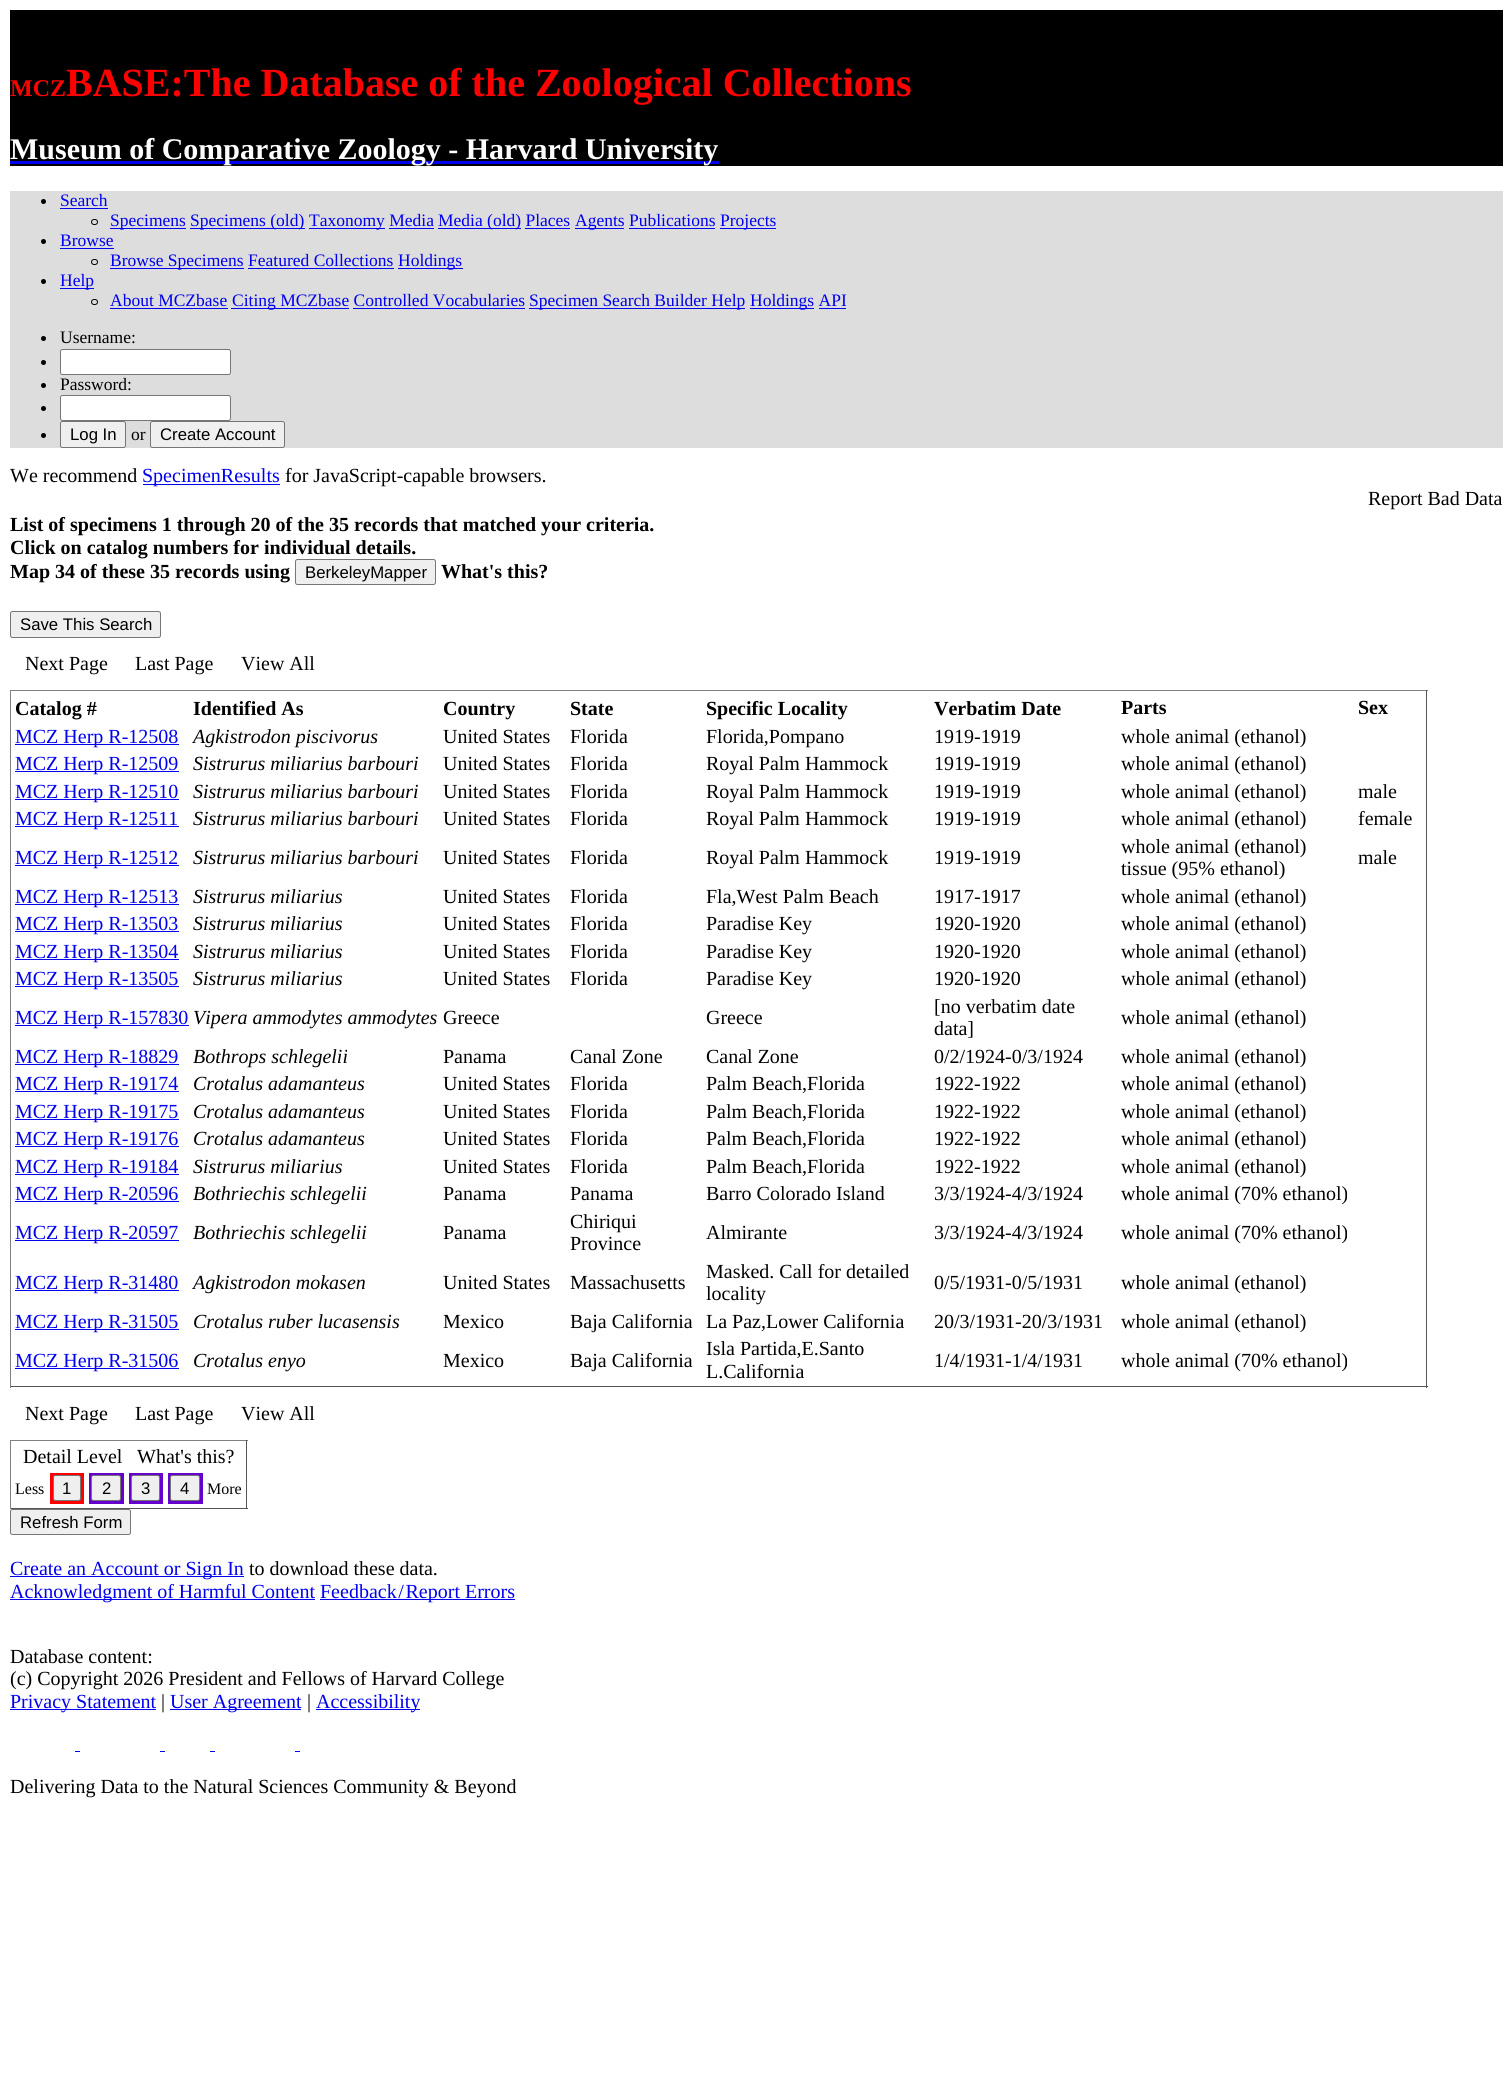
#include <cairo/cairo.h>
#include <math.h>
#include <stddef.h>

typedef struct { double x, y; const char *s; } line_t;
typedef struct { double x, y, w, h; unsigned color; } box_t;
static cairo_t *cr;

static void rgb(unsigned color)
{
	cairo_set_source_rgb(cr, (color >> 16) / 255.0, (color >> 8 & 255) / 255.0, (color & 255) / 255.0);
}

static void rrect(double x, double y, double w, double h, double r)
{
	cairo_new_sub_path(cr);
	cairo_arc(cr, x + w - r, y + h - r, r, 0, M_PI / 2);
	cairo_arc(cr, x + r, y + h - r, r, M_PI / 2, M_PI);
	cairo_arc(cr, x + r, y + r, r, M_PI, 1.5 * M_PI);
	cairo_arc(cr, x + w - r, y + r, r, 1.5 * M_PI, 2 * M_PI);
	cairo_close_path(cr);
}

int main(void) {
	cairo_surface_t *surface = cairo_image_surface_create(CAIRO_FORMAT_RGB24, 1512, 2081);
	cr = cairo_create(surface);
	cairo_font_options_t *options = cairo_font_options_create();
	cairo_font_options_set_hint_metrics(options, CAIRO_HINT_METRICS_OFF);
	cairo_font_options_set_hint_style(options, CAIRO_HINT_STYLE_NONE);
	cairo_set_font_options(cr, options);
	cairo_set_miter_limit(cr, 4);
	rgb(0xffffff);
	cairo_paint(cr);
	{
		static const box_t items[] = {
			{10, 10, 1493, 156, 0x000000},
			{10, 161, 709, 3, 0x0000ee},
			{10, 191, 1493, 257, 0xdddddd},
		};
		for (size_t i = 0; i < sizeof items / sizeof *items; i++) {
			rgb(items[i].color);
			cairo_rectangle(cr, items[i].x, items[i].y, items[i].w, items[i].h);
			cairo_fill(cr);
		}
	}
	rgb(0x000000);
	cairo_arc(cr, 43.5, 201.5, 2.5, 0, 2 * M_PI);
	cairo_fill(cr);
	rgb(0x0000ee);
	cairo_rectangle(cr, 60, 208, 48, 1);
	cairo_fill(cr);
	rrect(91.5, 219.5, 6, 5, 2.5);
	rgb(0x000000);
	cairo_set_line_width(cr, 1);
	cairo_stroke(cr);
	{
		static const box_t items[] = {
			{110, 228, 76, 1, 0x0000ee},
			{190, 228, 115, 1, 0x0000ee},
			{309, 228, 76, 1, 0x0000ee},
			{438, 228, 83, 1, 0x0000ee},
			{575, 228, 49, 1, 0x0000ee},
			{720, 228, 56, 1, 0x0000ee},
			{389, 228, 45, 1, 0x0000ee},
			{525, 228, 45, 1, 0x0000ee},
			{629, 228, 86, 1, 0x0000ee},
		};
		for (size_t i = 0; i < sizeof items / sizeof *items; i++) {
			rgb(items[i].color);
			cairo_rectangle(cr, items[i].x, items[i].y, items[i].w, items[i].h);
			cairo_fill(cr);
		}
	}
	rgb(0x000000);
	cairo_arc(cr, 43.5, 241.5, 2.5, 0, 2 * M_PI);
	cairo_fill(cr);
	rgb(0x0000ee);
	cairo_rectangle(cr, 60, 248, 54, 1);
	cairo_fill(cr);
	rrect(91.5, 259.5, 6, 5, 2.5);
	rgb(0x000000);
	cairo_stroke(cr);
	{
		static const box_t items[] = {
			{110, 268, 134, 1, 0x0000ee},
			{398, 268, 65, 1, 0x0000ee},
			{248, 268, 146, 1, 0x0000ee},
		};
		for (size_t i = 0; i < sizeof items / sizeof *items; i++) {
			rgb(items[i].color);
			cairo_rectangle(cr, items[i].x, items[i].y, items[i].w, items[i].h);
			cairo_fill(cr);
		}
	}
	rgb(0x000000);
	cairo_arc(cr, 43.5, 281.5, 2.5, 0, 2 * M_PI);
	cairo_fill(cr);
	rgb(0x0000ee);
	cairo_rectangle(cr, 60, 288, 34, 1);
	cairo_fill(cr);
	rrect(91.5, 299.5, 6, 5, 2.5);
	rgb(0x000000);
	cairo_stroke(cr);
	{
		static const box_t items[] = {
			{110, 308, 118, 1, 0x0000ee},
			{231, 308, 118, 1, 0x0000ee},
			{529, 308, 216, 1, 0x0000ee},
			{750, 308, 64, 1, 0x0000ee},
			{353, 308, 172, 1, 0x0000ee},
			{819, 308, 27, 1, 0x0000ee},
		};
		for (size_t i = 0; i < sizeof items / sizeof *items; i++) {
			rgb(items[i].color);
			cairo_rectangle(cr, items[i].x, items[i].y, items[i].w, items[i].h);
			cairo_fill(cr);
		}
	}
	rgb(0x000000);
	cairo_arc(cr, 43.5, 338.5, 2.5, 0, 2 * M_PI);
	cairo_fill(cr);
	cairo_arc(cr, 43.5, 362.5, 2.5, 0, 2 * M_PI);
	cairo_fill(cr);
	rgb(0xffffff);
	rrect(60.5, 349.5, 170, 25, 2);
	cairo_fill_preserve(cr);
	rgb(0x767676);
	cairo_stroke(cr);
	rgb(0x000000);
	cairo_arc(cr, 43.5, 385.5, 2.5, 0, 2 * M_PI);
	cairo_fill(cr);
	cairo_arc(cr, 43.5, 408.5, 2.5, 0, 2 * M_PI);
	cairo_fill(cr);
	rgb(0xffffff);
	rrect(60.5, 395.5, 170, 25, 2);
	cairo_fill_preserve(cr);
	rgb(0x767676);
	cairo_stroke(cr);
	rgb(0x000000);
	cairo_arc(cr, 43.5, 435.5, 2.5, 0, 2 * M_PI);
	cairo_fill(cr);
	rgb(0xefefef);
	rrect(60.5, 421.5, 65, 26, 2);
	cairo_fill_preserve(cr);
	rgb(0x767676);
	cairo_stroke(cr);
	rgb(0xefefef);
	rrect(150.5, 421.5, 134, 26, 2);
	cairo_fill_preserve(cr);
	rgb(0x767676);
	cairo_stroke(cr);
	rgb(0x0000ee);
	cairo_rectangle(cr, 143, 484, 137, 1);
	cairo_fill(cr);
	rgb(0xefefef);
	rrect(295.5, 559.5, 140, 25, 2);
	cairo_fill_preserve(cr);
	rgb(0x767676);
	cairo_stroke(cr);
	rgb(0xefefef);
	rrect(10.5, 611.5, 150, 26, 2);
	cairo_fill_preserve(cr);
	rgb(0x767676);
	cairo_stroke(cr);
	{
		static const box_t items[] = {
			{10, 690, 1418, 1, 0x808080},
			{1426, 690, 1, 698, 0x555555},
			{10, 1386, 1418, 1, 0x555555},
			{10, 690, 1, 698, 0x808080},
			{15, 744, 164, 1, 0x0000ee},
			{15, 771, 164, 1, 0x0000ee},
			{15, 799, 164, 1, 0x0000ee},
			{15, 826, 164, 1, 0x0000ee},
			{15, 865, 164, 1, 0x0000ee},
			{15, 904, 164, 1, 0x0000ee},
			{15, 931, 164, 1, 0x0000ee},
			{15, 959, 164, 1, 0x0000ee},
			{15, 986, 164, 1, 0x0000ee},
			{15, 1025, 174, 1, 0x0000ee},
			{15, 1064, 164, 1, 0x0000ee},
			{15, 1091, 164, 1, 0x0000ee},
			{15, 1119, 164, 1, 0x0000ee},
			{15, 1146, 164, 1, 0x0000ee},
			{15, 1174, 164, 1, 0x0000ee},
			{15, 1201, 164, 1, 0x0000ee},
			{15, 1240, 164, 1, 0x0000ee},
			{15, 1290, 164, 1, 0x0000ee},
			{15, 1329, 164, 1, 0x0000ee},
			{15, 1368, 164, 1, 0x0000ee},
			{10, 1440, 238, 1, 0x808080},
			{246, 1440, 1, 69, 0x555555},
			{10, 1508, 238, 1, 0x555555},
			{10, 1440, 1, 69, 0x808080},
			{50, 1473, 34, 31, 0xff0000},
		};
		for (size_t i = 0; i < sizeof items / sizeof *items; i++) {
			rgb(items[i].color);
			cairo_rectangle(cr, items[i].x, items[i].y, items[i].w, items[i].h);
			cairo_fill(cr);
		}
	}
	rgb(0xefefef);
	rrect(53.5, 1475.5, 27, 25, 2);
	cairo_fill_preserve(cr);
	rgb(0x767676);
	cairo_stroke(cr);
	rgb(0x6600cc);
	cairo_rectangle(cr, 89, 1473, 35, 31);
	cairo_fill(cr);
	rgb(0xefefef);
	rrect(91.5, 1475.5, 29, 25, 2);
	cairo_fill_preserve(cr);
	rgb(0x767676);
	cairo_stroke(cr);
	rgb(0x6600cc);
	cairo_rectangle(cr, 129, 1473, 34, 31);
	cairo_fill(cr);
	rgb(0xefefef);
	rrect(131.5, 1475.5, 28, 25, 2);
	cairo_fill_preserve(cr);
	rgb(0x767676);
	cairo_stroke(cr);
	rgb(0x6600cc);
	cairo_rectangle(cr, 168, 1473, 35, 31);
	cairo_fill(cr);
	rgb(0xefefef);
	rrect(170.5, 1475.5, 29, 25, 2);
	cairo_fill_preserve(cr);
	rgb(0x767676);
	cairo_stroke(cr);
	rgb(0xefefef);
	rrect(10.5, 1509.5, 120, 25, 2);
	cairo_fill_preserve(cr);
	rgb(0x767676);
	cairo_stroke(cr);
	{
		static const box_t items[] = {
			{10, 1576, 234, 1, 0x0000ee},
			{10, 1599, 305, 1, 0x0000ee},
			{320, 1599, 195, 1, 0x0000ee},
			{10, 1709, 146, 1, 0x0000ee},
			{170, 1709, 131, 1, 0x0000ee},
			{316, 1709, 104, 1, 0x0000ee},
			{75, 1751, 5, 1, 0x0000ee},
			{160, 1751, 5, 1, 0x0000ee},
			{210, 1751, 5, 1, 0x0000ee},
			{295, 1751, 5, 1, 0x0000ee},
		};
		for (size_t i = 0; i < sizeof items / sizeof *items; i++) {
			rgb(items[i].color);
			cairo_rectangle(cr, items[i].x, items[i].y, items[i].w, items[i].h);
			cairo_fill(cr);
		}
	}
	cairo_select_font_face(cr, "Liberation Serif", CAIRO_FONT_SLANT_NORMAL, CAIRO_FONT_WEIGHT_BOLD);
	cairo_set_font_size(cr, 24);
	rgb(0xff0000);
	cairo_move_to(cr, 10, 96);
	cairo_show_text(cr, "MCZ");
	cairo_set_font_size(cr, 40);
	cairo_move_to(cr, 66, 96);
	cairo_show_text(cr, "BASE:The Database of the Zoological Collections");
	cairo_set_font_size(cr, 30);
	rgb(0xffffff);
	cairo_move_to(cr, 10, 159);
	cairo_show_text(cr, "Museum of Comparative Zoology - Harvard University");
	cairo_select_font_face(cr, "Liberation Serif", CAIRO_FONT_SLANT_NORMAL, CAIRO_FONT_WEIGHT_NORMAL);
	cairo_set_font_size(cr, 17.5);
	rgb(0x0000ee);
	{
		static const line_t items[] = {
			{60, 206, "Search"},
			{110, 226, "Specimens"},
			{190, 226, "Specimens (old)"},
			{309, 226, "Taxonomy Media"},
			{438, 226, "Media (old) Places"},
			{575, 226, "Agents Publications"},
			{720, 226, "Projects"},
			{60, 246, "Browse"},
			{110, 266, "Browse Specimens Featured Collections"},
			{398, 266, "Holdings"},
			{60, 286, "Help"},
			{110, 306, "About MCZbase"},
			{232, 306, "Citing MCZbase Controlled Vocabularies"},
			{529, 306, "Specimen Search Builder Help"},
			{750, 306, "Holdings API"},
		};
		for (size_t i = 0; i < sizeof items / sizeof *items; i++) {
			cairo_move_to(cr, items[i].x, items[i].y);
			cairo_show_text(cr, items[i].s);
		}
	}
	rgb(0x000000);
	cairo_move_to(cr, 60, 343);
	cairo_show_text(cr, "Username:");
	cairo_move_to(cr, 60, 390);
	cairo_show_text(cr, "Password:");
	cairo_select_font_face(cr, "Liberation Sans", CAIRO_FONT_SLANT_NORMAL, CAIRO_FONT_WEIGHT_NORMAL);
	cairo_set_font_size(cr, 16.75);
	cairo_move_to(cr, 70, 440);
	cairo_show_text(cr, "Log In");
	cairo_select_font_face(cr, "Liberation Serif", CAIRO_FONT_SLANT_NORMAL, CAIRO_FONT_WEIGHT_NORMAL);
	cairo_set_font_size(cr, 17.5);
	cairo_move_to(cr, 131, 440);
	cairo_show_text(cr, "or");
	cairo_select_font_face(cr, "Liberation Sans", CAIRO_FONT_SLANT_NORMAL, CAIRO_FONT_WEIGHT_NORMAL);
	cairo_set_font_size(cr, 16.75);
	cairo_move_to(cr, 160, 440);
	cairo_show_text(cr, "Create Account");
	cairo_select_font_face(cr, "Liberation Serif", CAIRO_FONT_SLANT_NORMAL, CAIRO_FONT_WEIGHT_NORMAL);
	cairo_set_font_size(cr, 20);
	cairo_move_to(cr, 10, 482);
	cairo_show_text(cr, "We recommend");
	rgb(0x0000ee);
	cairo_move_to(cr, 142, 482);
	cairo_show_text(cr, "SpecimenResults");
	rgb(0x000000);
	cairo_move_to(cr, 285, 482);
	cairo_show_text(cr, "for JavaScript-capable browsers.");
	cairo_move_to(cr, 1368, 505);
	cairo_show_text(cr, "Report Bad Data");
	cairo_select_font_face(cr, "Liberation Serif", CAIRO_FONT_SLANT_NORMAL, CAIRO_FONT_WEIGHT_BOLD);
	{
		static const line_t items[] = {
			{10, 531, "List of specimens 1 through 20 of the 35 records that matched your criteria."},
			{10, 554, "Click on catalog numbers for individual details."},
			{10, 578, "Map 34 of these 35 records using"},
		};
		for (size_t i = 0; i < sizeof items / sizeof *items; i++) {
			cairo_move_to(cr, items[i].x, items[i].y);
			cairo_show_text(cr, items[i].s);
		}
	}
	cairo_select_font_face(cr, "Liberation Sans", CAIRO_FONT_SLANT_NORMAL, CAIRO_FONT_WEIGHT_NORMAL);
	cairo_set_font_size(cr, 16.75);
	cairo_move_to(cr, 305, 578);
	cairo_show_text(cr, "BerkeleyMapper");
	cairo_select_font_face(cr, "Liberation Serif", CAIRO_FONT_SLANT_NORMAL, CAIRO_FONT_WEIGHT_BOLD);
	cairo_set_font_size(cr, 20);
	cairo_move_to(cr, 441, 578);
	cairo_show_text(cr, "What's this?");
	cairo_select_font_face(cr, "Liberation Sans", CAIRO_FONT_SLANT_NORMAL, CAIRO_FONT_WEIGHT_NORMAL);
	cairo_set_font_size(cr, 16.75);
	cairo_move_to(cr, 20, 630);
	cairo_show_text(cr, "Save This Search");
	cairo_select_font_face(cr, "Liberation Serif", CAIRO_FONT_SLANT_NORMAL, CAIRO_FONT_WEIGHT_NORMAL);
	cairo_set_font_size(cr, 20);
	{
		static const line_t items[] = {
			{25, 670, "Next Page"},
			{135, 670, "Last Page"},
			{241, 670, "View All"},
		};
		for (size_t i = 0; i < sizeof items / sizeof *items; i++) {
			cairo_move_to(cr, items[i].x, items[i].y);
			cairo_show_text(cr, items[i].s);
		}
	}
	cairo_select_font_face(cr, "Liberation Serif", CAIRO_FONT_SLANT_NORMAL, CAIRO_FONT_WEIGHT_BOLD);
	{
		static const line_t items[] = {
			{15, 715, "Catalog #"},
			{193, 715, "Identified As"},
			{443, 715, "Country"},
			{570, 715, "State"},
			{706, 715, "Specific Locality"},
			{934, 715, "Verbatim Date"},
			{1121, 714, "Parts"},
			{1358, 714, "Sex"},
		};
		for (size_t i = 0; i < sizeof items / sizeof *items; i++) {
			cairo_move_to(cr, items[i].x, items[i].y);
			cairo_show_text(cr, items[i].s);
		}
	}
	cairo_select_font_face(cr, "Liberation Serif", CAIRO_FONT_SLANT_NORMAL, CAIRO_FONT_WEIGHT_NORMAL);
	rgb(0x0000ee);
	cairo_move_to(cr, 15, 743);
	cairo_show_text(cr, "MCZ Herp R-12508");
	cairo_select_font_face(cr, "Liberation Serif", CAIRO_FONT_SLANT_ITALIC, CAIRO_FONT_WEIGHT_NORMAL);
	rgb(0x000000);
	cairo_move_to(cr, 193, 743);
	cairo_show_text(cr, "Agkistrodon piscivorus");
	cairo_select_font_face(cr, "Liberation Serif", CAIRO_FONT_SLANT_NORMAL, CAIRO_FONT_WEIGHT_NORMAL);
	{
		static const line_t items[] = {
			{443, 743, "United States"},
			{570, 743, "Florida"},
			{706, 743, "Florida,Pompano"},
			{934, 743, "1919-1919"},
			{1121, 743, "whole animal (ethanol)"},
		};
		for (size_t i = 0; i < sizeof items / sizeof *items; i++) {
			cairo_move_to(cr, items[i].x, items[i].y);
			cairo_show_text(cr, items[i].s);
		}
	}
	rgb(0x0000ee);
	cairo_move_to(cr, 15, 770);
	cairo_show_text(cr, "MCZ Herp R-12509");
	cairo_select_font_face(cr, "Liberation Serif", CAIRO_FONT_SLANT_ITALIC, CAIRO_FONT_WEIGHT_NORMAL);
	rgb(0x000000);
	cairo_move_to(cr, 193, 770);
	cairo_show_text(cr, "Sistrurus miliarius barbouri");
	cairo_select_font_face(cr, "Liberation Serif", CAIRO_FONT_SLANT_NORMAL, CAIRO_FONT_WEIGHT_NORMAL);
	{
		static const line_t items[] = {
			{443, 770, "United States"},
			{570, 770, "Florida"},
			{706, 770, "Royal Palm Hammock"},
			{934, 770, "1919-1919"},
			{1121, 770, "whole animal (ethanol)"},
		};
		for (size_t i = 0; i < sizeof items / sizeof *items; i++) {
			cairo_move_to(cr, items[i].x, items[i].y);
			cairo_show_text(cr, items[i].s);
		}
	}
	rgb(0x0000ee);
	cairo_move_to(cr, 15, 798);
	cairo_show_text(cr, "MCZ Herp R-12510");
	cairo_select_font_face(cr, "Liberation Serif", CAIRO_FONT_SLANT_ITALIC, CAIRO_FONT_WEIGHT_NORMAL);
	rgb(0x000000);
	cairo_move_to(cr, 193, 798);
	cairo_show_text(cr, "Sistrurus miliarius barbouri");
	cairo_select_font_face(cr, "Liberation Serif", CAIRO_FONT_SLANT_NORMAL, CAIRO_FONT_WEIGHT_NORMAL);
	{
		static const line_t items[] = {
			{443, 798, "United States"},
			{570, 798, "Florida"},
			{706, 798, "Royal Palm Hammock"},
			{934, 798, "1919-1919"},
			{1121, 798, "whole animal (ethanol)"},
			{1358, 798, "male"},
		};
		for (size_t i = 0; i < sizeof items / sizeof *items; i++) {
			cairo_move_to(cr, items[i].x, items[i].y);
			cairo_show_text(cr, items[i].s);
		}
	}
	rgb(0x0000ee);
	cairo_move_to(cr, 15, 825);
	cairo_show_text(cr, "MCZ Herp R-12511");
	cairo_select_font_face(cr, "Liberation Serif", CAIRO_FONT_SLANT_ITALIC, CAIRO_FONT_WEIGHT_NORMAL);
	rgb(0x000000);
	cairo_move_to(cr, 193, 825);
	cairo_show_text(cr, "Sistrurus miliarius barbouri");
	cairo_select_font_face(cr, "Liberation Serif", CAIRO_FONT_SLANT_NORMAL, CAIRO_FONT_WEIGHT_NORMAL);
	{
		static const line_t items[] = {
			{443, 825, "United States"},
			{570, 825, "Florida"},
			{706, 825, "Royal Palm Hammock"},
			{934, 825, "1919-1919"},
			{1121, 825, "whole animal (ethanol)"},
			{1358, 825, "female"},
		};
		for (size_t i = 0; i < sizeof items / sizeof *items; i++) {
			cairo_move_to(cr, items[i].x, items[i].y);
			cairo_show_text(cr, items[i].s);
		}
	}
	rgb(0x0000ee);
	cairo_move_to(cr, 15, 864);
	cairo_show_text(cr, "MCZ Herp R-12512");
	cairo_select_font_face(cr, "Liberation Serif", CAIRO_FONT_SLANT_ITALIC, CAIRO_FONT_WEIGHT_NORMAL);
	rgb(0x000000);
	cairo_move_to(cr, 193, 864);
	cairo_show_text(cr, "Sistrurus miliarius barbouri");
	cairo_select_font_face(cr, "Liberation Serif", CAIRO_FONT_SLANT_NORMAL, CAIRO_FONT_WEIGHT_NORMAL);
	{
		static const line_t items[] = {
			{443, 864, "United States"},
			{570, 864, "Florida"},
			{706, 864, "Royal Palm Hammock"},
			{934, 864, "1919-1919"},
			{1121, 853, "whole animal (ethanol)"},
			{1121, 875, "tissue (95% ethanol)"},
			{1358, 864, "male"},
		};
		for (size_t i = 0; i < sizeof items / sizeof *items; i++) {
			cairo_move_to(cr, items[i].x, items[i].y);
			cairo_show_text(cr, items[i].s);
		}
	}
	rgb(0x0000ee);
	cairo_move_to(cr, 15, 903);
	cairo_show_text(cr, "MCZ Herp R-12513");
	cairo_select_font_face(cr, "Liberation Serif", CAIRO_FONT_SLANT_ITALIC, CAIRO_FONT_WEIGHT_NORMAL);
	rgb(0x000000);
	cairo_move_to(cr, 193, 903);
	cairo_show_text(cr, "Sistrurus miliarius");
	cairo_select_font_face(cr, "Liberation Serif", CAIRO_FONT_SLANT_NORMAL, CAIRO_FONT_WEIGHT_NORMAL);
	{
		static const line_t items[] = {
			{443, 903, "United States"},
			{570, 903, "Florida"},
			{706, 903, "Fla,West Palm Beach"},
			{934, 903, "1917-1917"},
			{1121, 903, "whole animal (ethanol)"},
		};
		for (size_t i = 0; i < sizeof items / sizeof *items; i++) {
			cairo_move_to(cr, items[i].x, items[i].y);
			cairo_show_text(cr, items[i].s);
		}
	}
	rgb(0x0000ee);
	cairo_move_to(cr, 15, 930);
	cairo_show_text(cr, "MCZ Herp R-13503");
	cairo_select_font_face(cr, "Liberation Serif", CAIRO_FONT_SLANT_ITALIC, CAIRO_FONT_WEIGHT_NORMAL);
	rgb(0x000000);
	cairo_move_to(cr, 193, 930);
	cairo_show_text(cr, "Sistrurus miliarius");
	cairo_select_font_face(cr, "Liberation Serif", CAIRO_FONT_SLANT_NORMAL, CAIRO_FONT_WEIGHT_NORMAL);
	{
		static const line_t items[] = {
			{443, 930, "United States"},
			{570, 930, "Florida"},
			{706, 930, "Paradise Key"},
			{934, 930, "1920-1920"},
			{1121, 930, "whole animal (ethanol)"},
		};
		for (size_t i = 0; i < sizeof items / sizeof *items; i++) {
			cairo_move_to(cr, items[i].x, items[i].y);
			cairo_show_text(cr, items[i].s);
		}
	}
	rgb(0x0000ee);
	cairo_move_to(cr, 15, 958);
	cairo_show_text(cr, "MCZ Herp R-13504");
	cairo_select_font_face(cr, "Liberation Serif", CAIRO_FONT_SLANT_ITALIC, CAIRO_FONT_WEIGHT_NORMAL);
	rgb(0x000000);
	cairo_move_to(cr, 193, 958);
	cairo_show_text(cr, "Sistrurus miliarius");
	cairo_select_font_face(cr, "Liberation Serif", CAIRO_FONT_SLANT_NORMAL, CAIRO_FONT_WEIGHT_NORMAL);
	{
		static const line_t items[] = {
			{443, 958, "United States"},
			{570, 958, "Florida"},
			{706, 958, "Paradise Key"},
			{934, 958, "1920-1920"},
			{1121, 958, "whole animal (ethanol)"},
		};
		for (size_t i = 0; i < sizeof items / sizeof *items; i++) {
			cairo_move_to(cr, items[i].x, items[i].y);
			cairo_show_text(cr, items[i].s);
		}
	}
	rgb(0x0000ee);
	cairo_move_to(cr, 15, 985);
	cairo_show_text(cr, "MCZ Herp R-13505");
	cairo_select_font_face(cr, "Liberation Serif", CAIRO_FONT_SLANT_ITALIC, CAIRO_FONT_WEIGHT_NORMAL);
	rgb(0x000000);
	cairo_move_to(cr, 193, 985);
	cairo_show_text(cr, "Sistrurus miliarius");
	cairo_select_font_face(cr, "Liberation Serif", CAIRO_FONT_SLANT_NORMAL, CAIRO_FONT_WEIGHT_NORMAL);
	{
		static const line_t items[] = {
			{443, 985, "United States"},
			{570, 985, "Florida"},
			{706, 985, "Paradise Key"},
			{934, 985, "1920-1920"},
			{1121, 985, "whole animal (ethanol)"},
		};
		for (size_t i = 0; i < sizeof items / sizeof *items; i++) {
			cairo_move_to(cr, items[i].x, items[i].y);
			cairo_show_text(cr, items[i].s);
		}
	}
	rgb(0x0000ee);
	cairo_move_to(cr, 15, 1024);
	cairo_show_text(cr, "MCZ Herp R-157830");
	cairo_select_font_face(cr, "Liberation Serif", CAIRO_FONT_SLANT_ITALIC, CAIRO_FONT_WEIGHT_NORMAL);
	rgb(0x000000);
	cairo_move_to(cr, 193, 1024);
	cairo_show_text(cr, "Vipera ammodytes ammodytes");
	cairo_select_font_face(cr, "Liberation Serif", CAIRO_FONT_SLANT_NORMAL, CAIRO_FONT_WEIGHT_NORMAL);
	{
		static const line_t items[] = {
			{443, 1024, "Greece"},
			{706, 1024, "Greece"},
			{934, 1013, "[no verbatim date"},
			{934, 1035, "data]"},
			{1121, 1024, "whole animal (ethanol)"},
		};
		for (size_t i = 0; i < sizeof items / sizeof *items; i++) {
			cairo_move_to(cr, items[i].x, items[i].y);
			cairo_show_text(cr, items[i].s);
		}
	}
	rgb(0x0000ee);
	cairo_move_to(cr, 15, 1063);
	cairo_show_text(cr, "MCZ Herp R-18829");
	cairo_select_font_face(cr, "Liberation Serif", CAIRO_FONT_SLANT_ITALIC, CAIRO_FONT_WEIGHT_NORMAL);
	rgb(0x000000);
	cairo_move_to(cr, 193, 1063);
	cairo_show_text(cr, "Bothrops schlegelii");
	cairo_select_font_face(cr, "Liberation Serif", CAIRO_FONT_SLANT_NORMAL, CAIRO_FONT_WEIGHT_NORMAL);
	{
		static const line_t items[] = {
			{443, 1063, "Panama"},
			{570, 1063, "Canal Zone"},
			{706, 1063, "Canal Zone"},
			{934, 1063, "0/2/1924-0/3/1924"},
			{1121, 1063, "whole animal (ethanol)"},
		};
		for (size_t i = 0; i < sizeof items / sizeof *items; i++) {
			cairo_move_to(cr, items[i].x, items[i].y);
			cairo_show_text(cr, items[i].s);
		}
	}
	rgb(0x0000ee);
	cairo_move_to(cr, 15, 1090);
	cairo_show_text(cr, "MCZ Herp R-19174");
	cairo_select_font_face(cr, "Liberation Serif", CAIRO_FONT_SLANT_ITALIC, CAIRO_FONT_WEIGHT_NORMAL);
	rgb(0x000000);
	cairo_move_to(cr, 193, 1090);
	cairo_show_text(cr, "Crotalus adamanteus");
	cairo_select_font_face(cr, "Liberation Serif", CAIRO_FONT_SLANT_NORMAL, CAIRO_FONT_WEIGHT_NORMAL);
	{
		static const line_t items[] = {
			{443, 1090, "United States"},
			{570, 1090, "Florida"},
			{706, 1090, "Palm Beach,Florida"},
			{934, 1090, "1922-1922"},
			{1121, 1090, "whole animal (ethanol)"},
		};
		for (size_t i = 0; i < sizeof items / sizeof *items; i++) {
			cairo_move_to(cr, items[i].x, items[i].y);
			cairo_show_text(cr, items[i].s);
		}
	}
	rgb(0x0000ee);
	cairo_move_to(cr, 15, 1118);
	cairo_show_text(cr, "MCZ Herp R-19175");
	cairo_select_font_face(cr, "Liberation Serif", CAIRO_FONT_SLANT_ITALIC, CAIRO_FONT_WEIGHT_NORMAL);
	rgb(0x000000);
	cairo_move_to(cr, 193, 1118);
	cairo_show_text(cr, "Crotalus adamanteus");
	cairo_select_font_face(cr, "Liberation Serif", CAIRO_FONT_SLANT_NORMAL, CAIRO_FONT_WEIGHT_NORMAL);
	{
		static const line_t items[] = {
			{443, 1118, "United States"},
			{570, 1118, "Florida"},
			{706, 1118, "Palm Beach,Florida"},
			{934, 1118, "1922-1922"},
			{1121, 1118, "whole animal (ethanol)"},
		};
		for (size_t i = 0; i < sizeof items / sizeof *items; i++) {
			cairo_move_to(cr, items[i].x, items[i].y);
			cairo_show_text(cr, items[i].s);
		}
	}
	rgb(0x0000ee);
	cairo_move_to(cr, 15, 1145);
	cairo_show_text(cr, "MCZ Herp R-19176");
	cairo_select_font_face(cr, "Liberation Serif", CAIRO_FONT_SLANT_ITALIC, CAIRO_FONT_WEIGHT_NORMAL);
	rgb(0x000000);
	cairo_move_to(cr, 193, 1145);
	cairo_show_text(cr, "Crotalus adamanteus");
	cairo_select_font_face(cr, "Liberation Serif", CAIRO_FONT_SLANT_NORMAL, CAIRO_FONT_WEIGHT_NORMAL);
	{
		static const line_t items[] = {
			{443, 1145, "United States"},
			{570, 1145, "Florida"},
			{706, 1145, "Palm Beach,Florida"},
			{934, 1145, "1922-1922"},
			{1121, 1145, "whole animal (ethanol)"},
		};
		for (size_t i = 0; i < sizeof items / sizeof *items; i++) {
			cairo_move_to(cr, items[i].x, items[i].y);
			cairo_show_text(cr, items[i].s);
		}
	}
	rgb(0x0000ee);
	cairo_move_to(cr, 15, 1173);
	cairo_show_text(cr, "MCZ Herp R-19184");
	cairo_select_font_face(cr, "Liberation Serif", CAIRO_FONT_SLANT_ITALIC, CAIRO_FONT_WEIGHT_NORMAL);
	rgb(0x000000);
	cairo_move_to(cr, 193, 1173);
	cairo_show_text(cr, "Sistrurus miliarius");
	cairo_select_font_face(cr, "Liberation Serif", CAIRO_FONT_SLANT_NORMAL, CAIRO_FONT_WEIGHT_NORMAL);
	{
		static const line_t items[] = {
			{443, 1173, "United States"},
			{570, 1173, "Florida"},
			{706, 1173, "Palm Beach,Florida"},
			{934, 1173, "1922-1922"},
			{1121, 1173, "whole animal (ethanol)"},
		};
		for (size_t i = 0; i < sizeof items / sizeof *items; i++) {
			cairo_move_to(cr, items[i].x, items[i].y);
			cairo_show_text(cr, items[i].s);
		}
	}
	rgb(0x0000ee);
	cairo_move_to(cr, 15, 1200);
	cairo_show_text(cr, "MCZ Herp R-20596");
	cairo_select_font_face(cr, "Liberation Serif", CAIRO_FONT_SLANT_ITALIC, CAIRO_FONT_WEIGHT_NORMAL);
	rgb(0x000000);
	cairo_move_to(cr, 193, 1200);
	cairo_show_text(cr, "Bothriechis schlegelii");
	cairo_select_font_face(cr, "Liberation Serif", CAIRO_FONT_SLANT_NORMAL, CAIRO_FONT_WEIGHT_NORMAL);
	{
		static const line_t items[] = {
			{443, 1200, "Panama"},
			{570, 1200, "Panama"},
			{706, 1200, "Barro Colorado Island"},
			{934, 1200, "3/3/1924-4/3/1924"},
			{1121, 1200, "whole animal (70% ethanol)"},
		};
		for (size_t i = 0; i < sizeof items / sizeof *items; i++) {
			cairo_move_to(cr, items[i].x, items[i].y);
			cairo_show_text(cr, items[i].s);
		}
	}
	rgb(0x0000ee);
	cairo_move_to(cr, 15, 1239);
	cairo_show_text(cr, "MCZ Herp R-20597");
	cairo_select_font_face(cr, "Liberation Serif", CAIRO_FONT_SLANT_ITALIC, CAIRO_FONT_WEIGHT_NORMAL);
	rgb(0x000000);
	cairo_move_to(cr, 193, 1239);
	cairo_show_text(cr, "Bothriechis schlegelii");
	cairo_select_font_face(cr, "Liberation Serif", CAIRO_FONT_SLANT_NORMAL, CAIRO_FONT_WEIGHT_NORMAL);
	{
		static const line_t items[] = {
			{443, 1239, "Panama"},
			{570, 1228, "Chiriqui"},
			{570, 1250, "Province"},
			{706, 1239, "Almirante"},
			{934, 1239, "3/3/1924-4/3/1924"},
			{1121, 1239, "whole animal (70% ethanol)"},
		};
		for (size_t i = 0; i < sizeof items / sizeof *items; i++) {
			cairo_move_to(cr, items[i].x, items[i].y);
			cairo_show_text(cr, items[i].s);
		}
	}
	rgb(0x0000ee);
	cairo_move_to(cr, 15, 1289);
	cairo_show_text(cr, "MCZ Herp R-31480");
	cairo_select_font_face(cr, "Liberation Serif", CAIRO_FONT_SLANT_ITALIC, CAIRO_FONT_WEIGHT_NORMAL);
	rgb(0x000000);
	cairo_move_to(cr, 193, 1289);
	cairo_show_text(cr, "Agkistrodon mokasen");
	cairo_select_font_face(cr, "Liberation Serif", CAIRO_FONT_SLANT_NORMAL, CAIRO_FONT_WEIGHT_NORMAL);
	{
		static const line_t items[] = {
			{443, 1289, "United States"},
			{570, 1289, "Massachusetts"},
			{706, 1278, "Masked. Call for detailed"},
			{706, 1300, "locality"},
			{934, 1289, "0/5/1931-0/5/1931"},
			{1121, 1289, "whole animal (ethanol)"},
		};
		for (size_t i = 0; i < sizeof items / sizeof *items; i++) {
			cairo_move_to(cr, items[i].x, items[i].y);
			cairo_show_text(cr, items[i].s);
		}
	}
	rgb(0x0000ee);
	cairo_move_to(cr, 15, 1328);
	cairo_show_text(cr, "MCZ Herp R-31505");
	cairo_select_font_face(cr, "Liberation Serif", CAIRO_FONT_SLANT_ITALIC, CAIRO_FONT_WEIGHT_NORMAL);
	rgb(0x000000);
	cairo_move_to(cr, 193, 1328);
	cairo_show_text(cr, "Crotalus ruber lucasensis");
	cairo_select_font_face(cr, "Liberation Serif", CAIRO_FONT_SLANT_NORMAL, CAIRO_FONT_WEIGHT_NORMAL);
	{
		static const line_t items[] = {
			{443, 1328, "Mexico"},
			{570, 1328, "Baja California"},
			{706, 1328, "La Paz,Lower California"},
			{934, 1328, "20/3/1931-20/3/1931"},
			{1121, 1328, "whole animal (ethanol)"},
		};
		for (size_t i = 0; i < sizeof items / sizeof *items; i++) {
			cairo_move_to(cr, items[i].x, items[i].y);
			cairo_show_text(cr, items[i].s);
		}
	}
	rgb(0x0000ee);
	cairo_move_to(cr, 15, 1367);
	cairo_show_text(cr, "MCZ Herp R-31506");
	cairo_select_font_face(cr, "Liberation Serif", CAIRO_FONT_SLANT_ITALIC, CAIRO_FONT_WEIGHT_NORMAL);
	rgb(0x000000);
	cairo_move_to(cr, 193, 1367);
	cairo_show_text(cr, "Crotalus enyo");
	cairo_select_font_face(cr, "Liberation Serif", CAIRO_FONT_SLANT_NORMAL, CAIRO_FONT_WEIGHT_NORMAL);
	{
		static const line_t items[] = {
			{443, 1367, "Mexico"},
			{570, 1367, "Baja California"},
			{706, 1355, "Isla Partida,E.Santo"},
			{706, 1378, "L.California"},
			{934, 1367, "1/4/1931-1/4/1931"},
			{1121, 1367, "whole animal (70% ethanol)"},
			{25, 1420, "Next Page"},
			{135, 1420, "Last Page"},
			{241, 1420, "View All"},
			{23, 1463, "Detail Level"},
			{137, 1463, "What's this?"},
		};
		for (size_t i = 0; i < sizeof items / sizeof *items; i++) {
			cairo_move_to(cr, items[i].x, items[i].y);
			cairo_show_text(cr, items[i].s);
		}
	}
	cairo_set_font_size(cr, 16);
	cairo_move_to(cr, 15, 1494);
	cairo_show_text(cr, "Less");
	cairo_select_font_face(cr, "Liberation Sans", CAIRO_FONT_SLANT_NORMAL, CAIRO_FONT_WEIGHT_NORMAL);
	cairo_set_font_size(cr, 16.75);
	{
		static const line_t items[] = {
			{62, 1494, "1"},
			{102, 1494, "2"},
			{141, 1494, "3"},
			{180, 1494, "4"},
		};
		for (size_t i = 0; i < sizeof items / sizeof *items; i++) {
			cairo_move_to(cr, items[i].x, items[i].y);
			cairo_show_text(cr, items[i].s);
		}
	}
	cairo_select_font_face(cr, "Liberation Serif", CAIRO_FONT_SLANT_NORMAL, CAIRO_FONT_WEIGHT_NORMAL);
	cairo_set_font_size(cr, 16);
	cairo_move_to(cr, 207, 1494);
	cairo_show_text(cr, "More");
	cairo_select_font_face(cr, "Liberation Sans", CAIRO_FONT_SLANT_NORMAL, CAIRO_FONT_WEIGHT_NORMAL);
	cairo_set_font_size(cr, 16.75);
	cairo_move_to(cr, 20, 1528);
	cairo_show_text(cr, "Refresh Form");
	cairo_select_font_face(cr, "Liberation Serif", CAIRO_FONT_SLANT_NORMAL, CAIRO_FONT_WEIGHT_NORMAL);
	cairo_set_font_size(cr, 20);
	rgb(0x0000ee);
	cairo_move_to(cr, 10, 1575);
	cairo_show_text(cr, "Create an Account or Sign In");
	rgb(0x000000);
	cairo_move_to(cr, 249, 1575);
	cairo_show_text(cr, "to download these data.");
	rgb(0x0000ee);
	cairo_move_to(cr, 10, 1598);
	cairo_show_text(cr, "Acknowledgment of Harmful Content");
	cairo_move_to(cr, 320, 1598);
	cairo_show_text(cr, "Feedback / Report Errors");
	rgb(0x000000);
	cairo_move_to(cr, 10, 1663);
	cairo_show_text(cr, "Database content:");
	cairo_move_to(cr, 10, 1685);
	cairo_show_text(cr, "(c) Copyright 2026 President and Fellows of Harvard College");
	rgb(0x0000ee);
	cairo_move_to(cr, 10, 1708);
	cairo_show_text(cr, "Privacy Statement");
	rgb(0x000000);
	cairo_move_to(cr, 161, 1708);
	cairo_show_text(cr, "|");
	rgb(0x0000ee);
	cairo_move_to(cr, 170, 1708);
	cairo_show_text(cr, "User Agreement");
	rgb(0x000000);
	cairo_move_to(cr, 307, 1708);
	cairo_show_text(cr, "|");
	rgb(0x0000ee);
	cairo_move_to(cr, 316, 1708);
	cairo_show_text(cr, "Accessibility");
	rgb(0x000000);
	cairo_move_to(cr, 10, 1793);
	cairo_show_text(cr, "Delivering Data to the Natural Sciences Community & Beyond");
	cairo_surface_write_to_png(surface, "page.png");
	cairo_font_options_destroy(options);
	cairo_destroy(cr);
	cairo_surface_destroy(surface);
	return 0;
}
